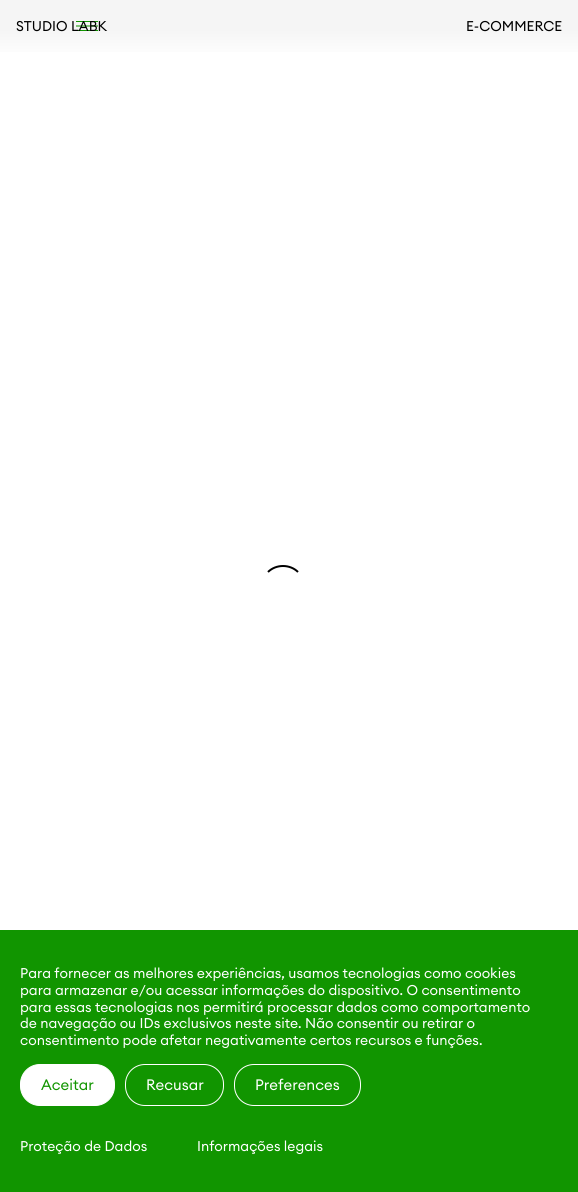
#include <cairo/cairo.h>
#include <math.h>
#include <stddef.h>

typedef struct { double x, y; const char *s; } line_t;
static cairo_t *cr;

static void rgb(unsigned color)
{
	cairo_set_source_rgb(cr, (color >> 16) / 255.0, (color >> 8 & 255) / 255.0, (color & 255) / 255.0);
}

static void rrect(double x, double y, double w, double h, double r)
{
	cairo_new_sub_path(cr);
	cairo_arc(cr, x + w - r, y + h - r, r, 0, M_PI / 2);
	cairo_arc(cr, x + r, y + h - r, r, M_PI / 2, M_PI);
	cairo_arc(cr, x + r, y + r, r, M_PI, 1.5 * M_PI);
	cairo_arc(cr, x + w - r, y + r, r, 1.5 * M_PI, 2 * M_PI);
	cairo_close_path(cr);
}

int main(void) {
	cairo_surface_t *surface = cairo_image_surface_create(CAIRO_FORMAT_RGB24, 578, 1192);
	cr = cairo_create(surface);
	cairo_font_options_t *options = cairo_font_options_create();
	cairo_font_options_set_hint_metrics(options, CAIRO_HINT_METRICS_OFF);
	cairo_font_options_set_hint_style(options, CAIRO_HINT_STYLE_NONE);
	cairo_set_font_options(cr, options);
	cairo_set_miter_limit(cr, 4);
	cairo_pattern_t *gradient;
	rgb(0xffffff);
	cairo_paint(cr);
	gradient = cairo_pattern_create_linear(289, 0, 289, 60);
	cairo_pattern_add_color_stop_rgba(gradient, 0, 0.961, 0.961, 0.961, 1);
	cairo_pattern_add_color_stop_rgba(gradient, 0.5, 0.961, 0.961, 0.961, 1);
	cairo_pattern_add_color_stop_rgba(gradient, 1, 1, 1, 1, 1);
	cairo_set_source(cr, gradient);
	cairo_pattern_destroy(gradient);
	cairo_rectangle(cr, 0, 0, 578, 52);
	cairo_fill(cr);
	rgb(0x119500);
	cairo_rectangle(cr, 76, 21, 22, 1);
	cairo_fill(cr);
	cairo_rectangle(cr, 76, 30, 22, 1);
	cairo_fill(cr);
	cairo_new_path(cr);
	cairo_move_to(cr, 76, 26);
	cairo_line_to(cr, 98, 26);
	cairo_set_line_width(cr, 1);
	cairo_stroke(cr);
	cairo_new_path(cr);
	cairo_move_to(cr, 268, 572);
	cairo_curve_to(cr, 276, 564, 290, 564, 298, 572);
	cairo_move_to(cr, 268, 572);
	cairo_curve_to(cr, 276, 564, 290, 564, 298, 572);
	cairo_move_to(cr, 268, 572);
	cairo_curve_to(cr, 276, 564, 290, 564, 298, 572);
	cairo_move_to(cr, 268, 572);
	cairo_curve_to(cr, 276, 564, 290, 564, 298, 572);
	rgb(0x000000);
	cairo_set_line_width(cr, 2);
	cairo_stroke(cr);
	rgb(0x119500);
	cairo_rectangle(cr, 0, 930, 578, 262);
	cairo_fill(cr);
	rgb(0xffffff);
	rrect(20.5, 1064.5, 94, 41, 19.5);
	cairo_fill_preserve(cr);
	cairo_set_line_width(cr, 1);
	cairo_stroke(cr);
	rrect(125.5, 1064.5, 98, 41, 19.5);
	cairo_stroke(cr);
	rrect(234.5, 1064.5, 126, 41, 19.5);
	cairo_stroke(cr);
	cairo_select_font_face(cr, "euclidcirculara", CAIRO_FONT_SLANT_NORMAL, CAIRO_FONT_WEIGHT_NORMAL);
	cairo_set_font_size(cr, 14);
	rgb(0x000000);
	cairo_move_to(cr, 16, 31);
	cairo_show_text(cr, "STUDIO LABK");
	cairo_move_to(cr, 466, 31);
	cairo_show_text(cr, "E-COMMERCE");
	rgb(0xffffff);
	{
		static const line_t items[] = {
			{20, 978, "Para fornecer as melhores experiências, usamos tecnologias como cookies"},
			{20, 995, "para armazenar e/ou acessar informações do dispositivo. O consentimento"},
			{20, 1012, "para essas tecnologias nos permitirá processar dados como comportamento"},
			{20, 1028, "de navegação ou IDs exclusivos neste site. Não consentir ou retirar o"},
			{20, 1045, "consentimento pode afetar negativamente certos recursos e funções."},
		};
		for (size_t i = 0; i < sizeof items / sizeof *items; i++) {
			cairo_move_to(cr, items[i].x, items[i].y);
			cairo_show_text(cr, items[i].s);
		}
	}
	cairo_set_font_size(cr, 15);
	rgb(0x119500);
	cairo_move_to(cr, 41, 1090);
	cairo_show_text(cr, "Aceitar");
	rgb(0xffffff);
	cairo_move_to(cr, 146, 1090);
	cairo_show_text(cr, "Recusar");
	cairo_move_to(cr, 255, 1090);
	cairo_show_text(cr, "Preferences");
	cairo_set_font_size(cr, 14);
	cairo_move_to(cr, 20, 1151);
	cairo_show_text(cr, "Proteção de Dados");
	cairo_move_to(cr, 197, 1151);
	cairo_show_text(cr, "Informações legais");
	cairo_surface_write_to_png(surface, "page.png");
	cairo_font_options_destroy(options);
	cairo_destroy(cr);
	cairo_surface_destroy(surface);
	return 0;
}
